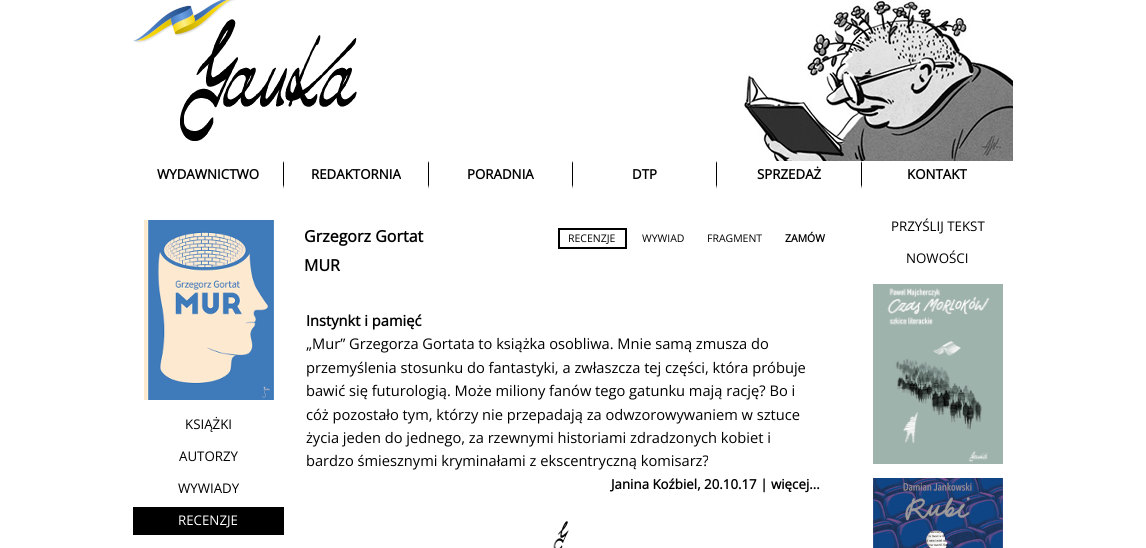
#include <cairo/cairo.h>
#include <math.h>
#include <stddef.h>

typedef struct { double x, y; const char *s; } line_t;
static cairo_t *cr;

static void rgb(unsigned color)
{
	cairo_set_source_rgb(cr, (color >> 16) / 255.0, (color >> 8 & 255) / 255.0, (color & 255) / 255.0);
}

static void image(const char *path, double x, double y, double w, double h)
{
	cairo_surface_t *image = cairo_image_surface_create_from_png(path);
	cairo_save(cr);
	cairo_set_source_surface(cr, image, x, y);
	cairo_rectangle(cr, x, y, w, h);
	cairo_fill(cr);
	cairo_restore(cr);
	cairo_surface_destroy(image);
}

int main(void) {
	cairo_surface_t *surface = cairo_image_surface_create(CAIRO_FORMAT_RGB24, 1146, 548);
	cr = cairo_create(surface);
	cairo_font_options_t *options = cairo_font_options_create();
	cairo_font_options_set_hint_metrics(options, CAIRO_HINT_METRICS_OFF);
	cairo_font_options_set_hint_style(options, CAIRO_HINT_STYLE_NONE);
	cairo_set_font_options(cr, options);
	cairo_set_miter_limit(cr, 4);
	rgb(0xffffff);
	cairo_paint(cr);
	image("img/1.png", 133, 0, 880, 161);
	rgb(0x000000);
	cairo_new_path(cr);
	cairo_move_to(cr, 284, 161);
	cairo_line_to(cr, 284, 190);
	cairo_line_to(cr, 283, 185);
	cairo_line_to(cr, 283, 163);
	cairo_close_path(cr);
	cairo_fill(cr);
	rgb(0xffffff);
	cairo_new_path(cr);
	cairo_move_to(cr, 284, 190);
	cairo_line_to(cr, 133, 190);
	cairo_line_to(cr, 133, 185);
	cairo_line_to(cr, 283, 185);
	cairo_close_path(cr);
	cairo_fill(cr);
	rgb(0x000000);
	cairo_new_path(cr);
	cairo_move_to(cr, 429, 161);
	cairo_line_to(cr, 429, 190);
	cairo_line_to(cr, 428, 185);
	cairo_line_to(cr, 428, 163);
	cairo_close_path(cr);
	cairo_fill(cr);
	rgb(0xffffff);
	cairo_new_path(cr);
	cairo_move_to(cr, 429, 190);
	cairo_line_to(cr, 284, 190);
	cairo_line_to(cr, 284, 185);
	cairo_line_to(cr, 428, 185);
	cairo_close_path(cr);
	cairo_fill(cr);
	rgb(0x000000);
	cairo_new_path(cr);
	cairo_move_to(cr, 573, 161);
	cairo_line_to(cr, 573, 190);
	cairo_line_to(cr, 572, 185);
	cairo_line_to(cr, 572, 163);
	cairo_close_path(cr);
	cairo_fill(cr);
	rgb(0xffffff);
	cairo_new_path(cr);
	cairo_move_to(cr, 573, 190);
	cairo_line_to(cr, 429, 190);
	cairo_line_to(cr, 429, 185);
	cairo_line_to(cr, 572, 185);
	cairo_close_path(cr);
	cairo_fill(cr);
	rgb(0x000000);
	cairo_new_path(cr);
	cairo_move_to(cr, 717, 161);
	cairo_line_to(cr, 717, 190);
	cairo_line_to(cr, 716, 185);
	cairo_line_to(cr, 716, 163);
	cairo_close_path(cr);
	cairo_fill(cr);
	rgb(0xffffff);
	cairo_new_path(cr);
	cairo_move_to(cr, 717, 190);
	cairo_line_to(cr, 573, 190);
	cairo_line_to(cr, 573, 185);
	cairo_line_to(cr, 716, 185);
	cairo_close_path(cr);
	cairo_fill(cr);
	rgb(0x000000);
	cairo_new_path(cr);
	cairo_move_to(cr, 862, 161);
	cairo_line_to(cr, 862, 190);
	cairo_line_to(cr, 861, 185);
	cairo_line_to(cr, 861, 163);
	cairo_close_path(cr);
	cairo_fill(cr);
	rgb(0xffffff);
	cairo_new_path(cr);
	cairo_move_to(cr, 862, 190);
	cairo_line_to(cr, 717, 190);
	cairo_line_to(cr, 717, 185);
	cairo_line_to(cr, 861, 185);
	cairo_close_path(cr);
	cairo_fill(cr);
	image("img/2.png", 144, 220, 130, 180);
	rgb(0x000000);
	cairo_rectangle(cr, 133, 507, 151, 28);
	cairo_fill(cr);
	cairo_rectangle(cr, 559, 229, 67, 19);
	cairo_stroke(cr);
	image("img/3.png", 553, 521, 16, 27);
	image("img/4.png", 873, 284, 130, 180);
	image("img/5.png", 873, 478, 130, 70);
	cairo_select_font_face(cr, "Open Sans", CAIRO_FONT_SLANT_NORMAL, CAIRO_FONT_WEIGHT_BOLD);
	cairo_set_font_size(cr, 13.3);
	{
		static const line_t items[] = {
			{157, 179, "WYDAWNICTWO"},
			{311, 179, "REDAKTORNIA"},
			{467, 179, "PORADNIA"},
			{632, 179, "DTP"},
			{757, 179, "SPRZEDAŻ"},
			{907, 179, "KONTAKT"},
		};
		for (size_t i = 0; i < sizeof items / sizeof *items; i++) {
			cairo_move_to(cr, items[i].x, items[i].y);
			cairo_show_text(cr, items[i].s);
		}
	}
	cairo_select_font_face(cr, "Open Sans", CAIRO_FONT_SLANT_NORMAL, CAIRO_FONT_WEIGHT_NORMAL);
	{
		static const line_t items[] = {
			{185, 429, "KSIĄŻKI"},
			{179, 461, "AUTORZY"},
			{178, 493, "WYWIADY"},
		};
		for (size_t i = 0; i < sizeof items / sizeof *items; i++) {
			cairo_move_to(cr, items[i].x, items[i].y);
			cairo_show_text(cr, items[i].s);
		}
	}
	rgb(0xffffff);
	cairo_move_to(cr, 178, 525);
	cairo_show_text(cr, "RECENZJE");
	cairo_select_font_face(cr, "Open Sans", CAIRO_FONT_SLANT_NORMAL, CAIRO_FONT_WEIGHT_BOLD);
	cairo_set_font_size(cr, 16);
	rgb(0x000000);
	cairo_move_to(cr, 304, 242);
	cairo_show_text(cr, "Grzegorz Gortat");
	cairo_select_font_face(cr, "Open Sans", CAIRO_FONT_SLANT_NORMAL, CAIRO_FONT_WEIGHT_NORMAL);
	cairo_set_font_size(cr, 10.5);
	{
		static const line_t items[] = {
			{568, 242, "RECENZJE"},
			{642, 242, "WYWIAD"},
			{707, 242, "FRAGMENT"},
		};
		for (size_t i = 0; i < sizeof items / sizeof *items; i++) {
			cairo_move_to(cr, items[i].x, items[i].y);
			cairo_show_text(cr, items[i].s);
		}
	}
	cairo_select_font_face(cr, "Open Sans", CAIRO_FONT_SLANT_NORMAL, CAIRO_FONT_WEIGHT_BOLD);
	cairo_move_to(cr, 785, 242);
	cairo_show_text(cr, "ZAMÓW");
	cairo_set_font_size(cr, 16);
	cairo_move_to(cr, 304, 271);
	cairo_show_text(cr, "MUR");
	cairo_set_font_size(cr, 14.65);
	cairo_move_to(cr, 306, 326);
	cairo_show_text(cr, "Instynkt i pamięć");
	cairo_select_font_face(cr, "Open Sans", CAIRO_FONT_SLANT_NORMAL, CAIRO_FONT_WEIGHT_NORMAL);
	{
		static const line_t items[] = {
			{306, 349, "„Mur” Grzegorza Gortata to książka osobliwa. Mnie samą zmusza do"},
			{306, 373, "przemyślenia stosunku do fantastyki, a zwłaszcza tej części, która próbuje"},
			{306, 396, "bawić się futurologią. Może miliony fanów tego gatunku mają rację? Bo i"},
			{306, 420, "cóż pozostało tym, którzy nie przepadają za odwzorowywaniem w sztuce"},
			{306, 443, "życia jeden do jednego, za rzewnymi historiami zdradzonych kobiet i"},
			{306, 466, "bardzo śmiesznymi kryminałami z ekscentryczną komisarz?"},
		};
		for (size_t i = 0; i < sizeof items / sizeof *items; i++) {
			cairo_move_to(cr, items[i].x, items[i].y);
			cairo_show_text(cr, items[i].s);
		}
	}
	cairo_select_font_face(cr, "Open Sans", CAIRO_FONT_SLANT_NORMAL, CAIRO_FONT_WEIGHT_BOLD);
	cairo_set_font_size(cr, 13.3);
	cairo_move_to(cr, 611, 489);
	cairo_show_text(cr, "Janina Koźbiel, 20.10.17 | więcej...");
	cairo_select_font_face(cr, "Open Sans", CAIRO_FONT_SLANT_NORMAL, CAIRO_FONT_WEIGHT_NORMAL);
	cairo_move_to(cr, 891, 231);
	cairo_show_text(cr, "PRZYŚLIJ TEKST");
	cairo_move_to(cr, 906, 263);
	cairo_show_text(cr, "NOWOŚCI");
	cairo_surface_write_to_png(surface, "page.png");
	cairo_font_options_destroy(options);
	cairo_destroy(cr);
	cairo_surface_destroy(surface);
	return 0;
}
